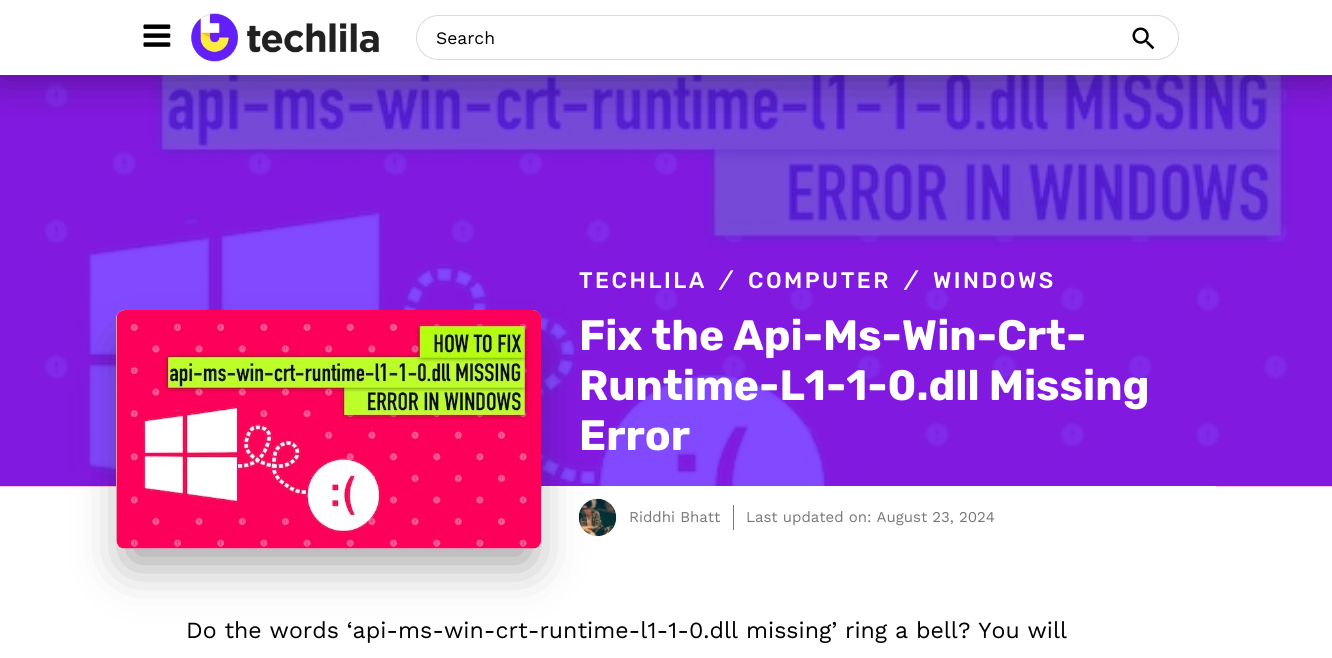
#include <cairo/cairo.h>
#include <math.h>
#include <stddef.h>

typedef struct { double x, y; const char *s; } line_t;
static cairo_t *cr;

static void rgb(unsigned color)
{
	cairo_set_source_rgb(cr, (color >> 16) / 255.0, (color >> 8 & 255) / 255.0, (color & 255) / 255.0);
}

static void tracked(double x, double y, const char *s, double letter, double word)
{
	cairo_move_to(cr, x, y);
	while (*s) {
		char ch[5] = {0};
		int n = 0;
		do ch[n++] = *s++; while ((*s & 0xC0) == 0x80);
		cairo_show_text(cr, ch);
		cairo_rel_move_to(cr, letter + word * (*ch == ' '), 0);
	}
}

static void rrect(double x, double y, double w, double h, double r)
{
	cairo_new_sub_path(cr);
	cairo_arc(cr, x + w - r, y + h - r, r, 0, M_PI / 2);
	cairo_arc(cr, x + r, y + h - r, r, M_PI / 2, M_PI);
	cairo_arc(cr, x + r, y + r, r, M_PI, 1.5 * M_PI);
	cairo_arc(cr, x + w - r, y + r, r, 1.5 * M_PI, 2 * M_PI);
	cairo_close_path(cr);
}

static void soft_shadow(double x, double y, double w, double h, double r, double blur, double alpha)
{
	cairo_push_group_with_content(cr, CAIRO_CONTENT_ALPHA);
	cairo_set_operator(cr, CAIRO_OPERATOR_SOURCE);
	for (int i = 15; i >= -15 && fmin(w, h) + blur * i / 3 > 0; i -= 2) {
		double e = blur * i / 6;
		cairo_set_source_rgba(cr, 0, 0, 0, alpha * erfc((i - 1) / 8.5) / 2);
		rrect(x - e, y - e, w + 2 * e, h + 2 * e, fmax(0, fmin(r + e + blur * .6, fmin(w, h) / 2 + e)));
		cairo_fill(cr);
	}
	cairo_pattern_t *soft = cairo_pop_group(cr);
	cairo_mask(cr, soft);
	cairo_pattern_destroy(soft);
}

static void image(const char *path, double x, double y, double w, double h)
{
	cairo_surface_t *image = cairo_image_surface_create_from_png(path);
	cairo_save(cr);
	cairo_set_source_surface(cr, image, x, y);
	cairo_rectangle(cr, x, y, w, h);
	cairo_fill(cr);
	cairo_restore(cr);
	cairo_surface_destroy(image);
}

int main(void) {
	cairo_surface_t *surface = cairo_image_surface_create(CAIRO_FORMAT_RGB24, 1332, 658);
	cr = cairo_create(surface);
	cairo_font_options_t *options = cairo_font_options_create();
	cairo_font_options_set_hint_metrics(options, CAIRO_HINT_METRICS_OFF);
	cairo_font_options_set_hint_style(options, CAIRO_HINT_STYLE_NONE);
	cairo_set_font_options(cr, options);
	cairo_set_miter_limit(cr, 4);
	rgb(0xffffff);
	cairo_paint(cr);
	image("img/4.png", 0, 75, 1332, 412);
	cairo_save(cr);
	cairo_rectangle(cr, 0, 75, 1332, 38);
	cairo_clip(cr);
	rgb(0x000000);
	soft_shadow(0, -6, 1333, 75, 0, 25, 0.5);
	cairo_restore(cr);
	image("img/1.png", 143, 24, 28, 23);
	image("img/2.png", 191, 13, 188, 49);
	rrect(416.5, 15.5, 762, 44, 22);
	rgb(0xdadada);
	cairo_set_line_width(cr, 1);
	cairo_stroke(cr);
	image("img/3.png", 1132, 27, 23, 23);
	image("img/6.png", 578, 498, 39, 39);
	rgb(0xffffff);
	cairo_rectangle(cr, 116, 486, 1100, 1);
	cairo_fill(cr);
	rgb(0x000000);
	soft_shadow(129, 348, 400, 213, 0, 25, 0.4);
	rgb(0xdadada);
	rrect(116, 310, 425, 239, 9);
	cairo_fill(cr);
	image("img/5.png", 116, 310, 425, 239);
	rgb(0x777777);
	cairo_rectangle(cr, 733, 505, 1, 25);
	cairo_fill(cr);
	cairo_select_font_face(cr, "Work Sans", CAIRO_FONT_SLANT_NORMAL, CAIRO_FONT_WEIGHT_NORMAL);
	cairo_set_font_size(cr, 17.5);
	rgb(0x000000);
	cairo_move_to(cr, 436, 44);
	cairo_show_text(cr, "Search");
	cairo_select_font_face(cr, "Rubik Medium", CAIRO_FONT_SLANT_NORMAL, CAIRO_FONT_WEIGHT_NORMAL);
	cairo_set_font_size(cr, 22.5);
	rgb(0xffffff);
	tracked(579, 288, "TECHLILA", 2.5, 0);
	cairo_select_font_face(cr, "Rubik Medium", CAIRO_FONT_SLANT_ITALIC, CAIRO_FONT_WEIGHT_NORMAL);
	tracked(720, 288, "/", 2.5, 0);
	cairo_select_font_face(cr, "Rubik Medium", CAIRO_FONT_SLANT_NORMAL, CAIRO_FONT_WEIGHT_NORMAL);
	tracked(748, 288, "COMPUTER", 2.5, 0);
	cairo_select_font_face(cr, "Rubik Medium", CAIRO_FONT_SLANT_ITALIC, CAIRO_FONT_WEIGHT_NORMAL);
	tracked(905, 288, "/", 2.5, 0);
	cairo_select_font_face(cr, "Rubik Medium", CAIRO_FONT_SLANT_NORMAL, CAIRO_FONT_WEIGHT_NORMAL);
	tracked(933, 288, "WINDOWS", 2.5, 0);
	cairo_select_font_face(cr, "Rubik", CAIRO_FONT_SLANT_NORMAL, CAIRO_FONT_WEIGHT_BOLD);
	cairo_set_font_size(cr, 42.5);
	{
		static const line_t items[] = {
			{579, 350, "Fix the Api-Ms-Win-Crt-"},
			{579, 400, "Runtime-L1-1-0.dll Missing"},
			{579, 450, "Error"},
		};
		for (size_t i = 0; i < sizeof items / sizeof *items; i++) {
			cairo_move_to(cr, items[i].x, items[i].y);
			cairo_show_text(cr, items[i].s);
		}
	}
	cairo_select_font_face(cr, "Work Sans", CAIRO_FONT_SLANT_NORMAL, CAIRO_FONT_WEIGHT_NORMAL);
	cairo_set_font_size(cr, 15);
	rgb(0x777777);
	cairo_move_to(cr, 629, 522);
	cairo_show_text(cr, "Riddhi Bhatt");
	cairo_move_to(cr, 746, 522);
	cairo_show_text(cr, "Last updated on: August 23, 2024");
	cairo_set_font_size(cr, 23.1);
	rgb(0x000000);
	cairo_move_to(cr, 186, 638);
	cairo_show_text(cr, "Do the words ‘api-ms-win-crt-runtime-l1-1-0.dll missing’ ring a bell? You will");
	cairo_surface_write_to_png(surface, "page.png");
	cairo_font_options_destroy(options);
	cairo_destroy(cr);
	cairo_surface_destroy(surface);
	return 0;
}
